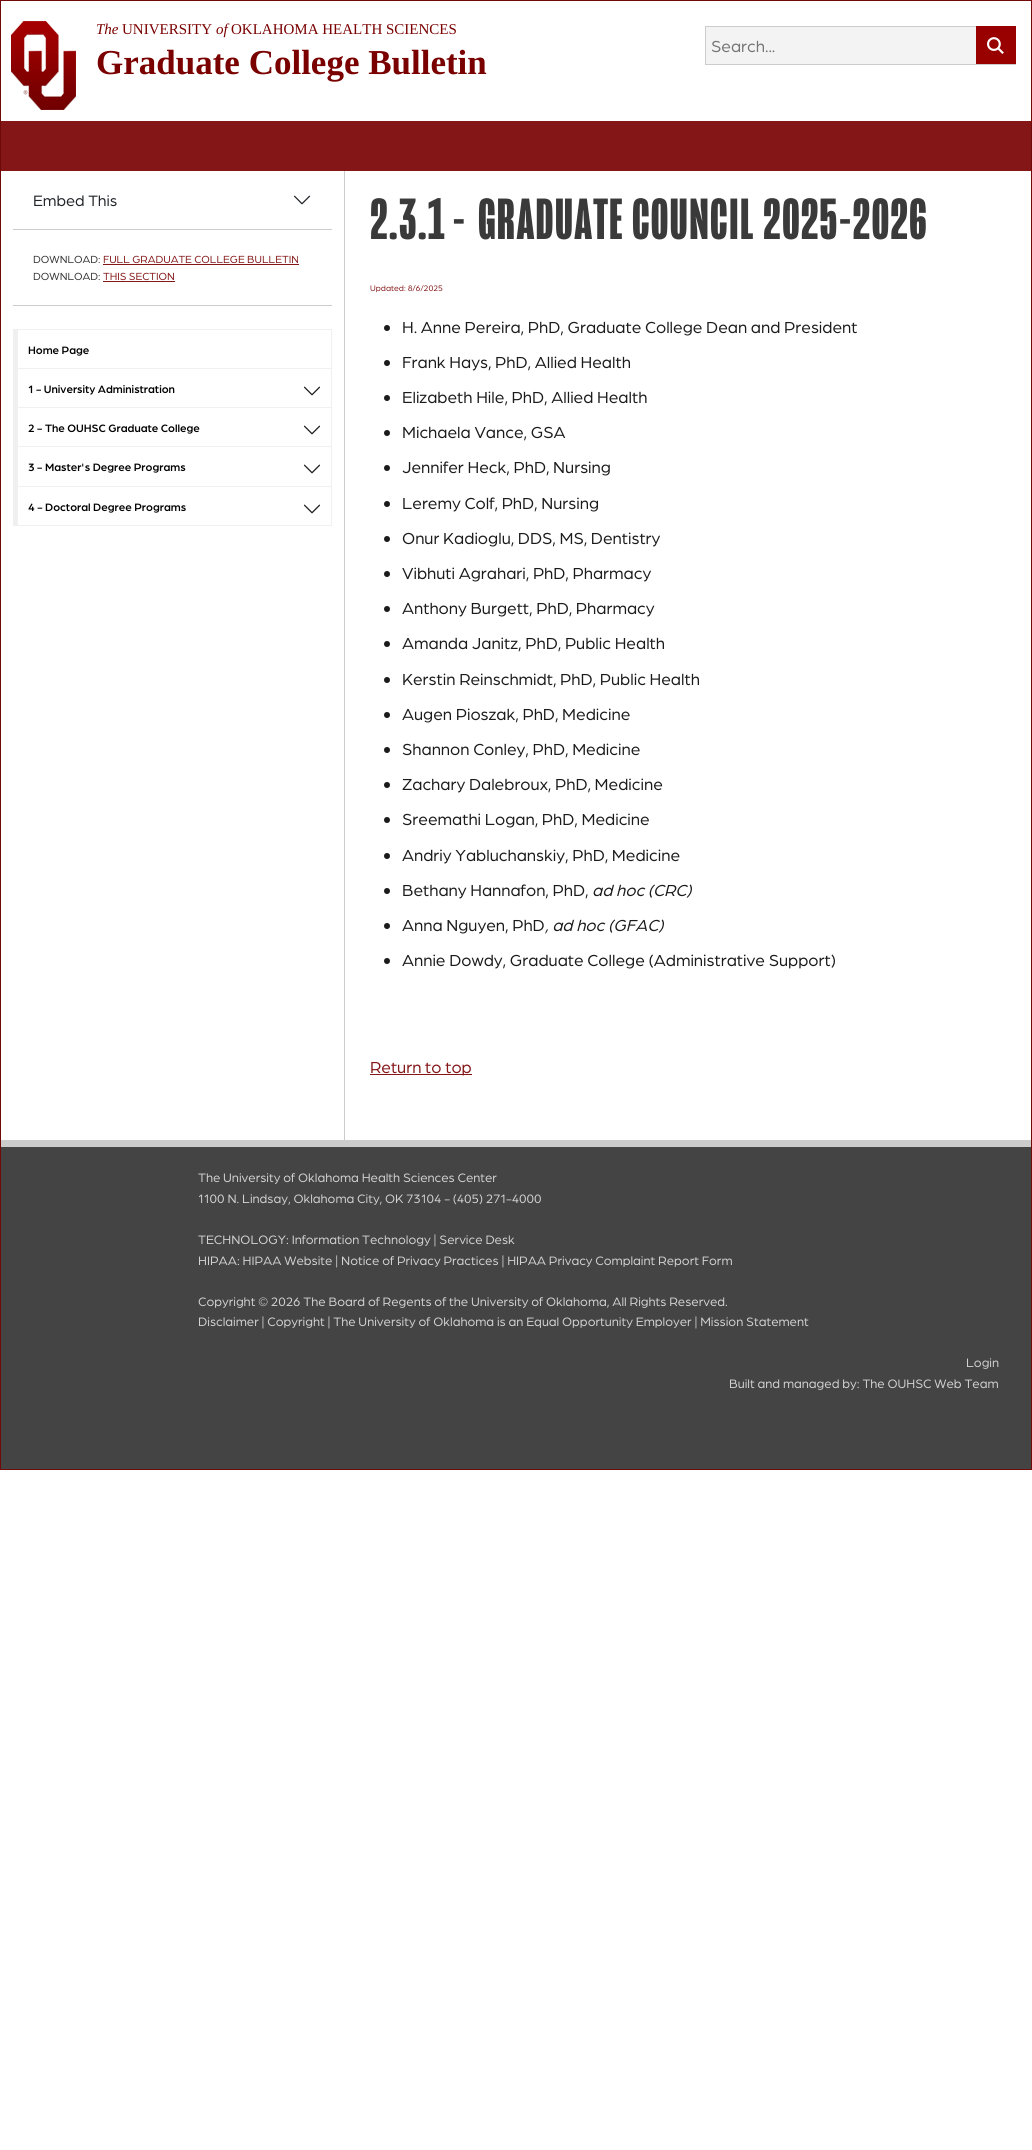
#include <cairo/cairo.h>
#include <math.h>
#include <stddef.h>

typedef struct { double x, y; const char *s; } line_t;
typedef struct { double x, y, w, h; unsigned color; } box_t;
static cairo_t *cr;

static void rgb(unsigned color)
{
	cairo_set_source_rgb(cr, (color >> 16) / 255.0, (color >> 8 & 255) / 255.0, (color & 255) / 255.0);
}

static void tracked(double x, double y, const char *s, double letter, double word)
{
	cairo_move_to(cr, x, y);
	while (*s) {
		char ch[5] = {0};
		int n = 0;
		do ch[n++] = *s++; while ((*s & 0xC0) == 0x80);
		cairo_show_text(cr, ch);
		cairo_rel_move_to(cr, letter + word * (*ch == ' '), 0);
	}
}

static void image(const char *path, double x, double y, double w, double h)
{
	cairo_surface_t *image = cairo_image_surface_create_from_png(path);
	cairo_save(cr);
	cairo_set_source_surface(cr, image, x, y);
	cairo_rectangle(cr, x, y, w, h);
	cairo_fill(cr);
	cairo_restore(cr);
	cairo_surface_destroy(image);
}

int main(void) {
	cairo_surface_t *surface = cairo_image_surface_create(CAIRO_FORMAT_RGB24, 1032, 2150);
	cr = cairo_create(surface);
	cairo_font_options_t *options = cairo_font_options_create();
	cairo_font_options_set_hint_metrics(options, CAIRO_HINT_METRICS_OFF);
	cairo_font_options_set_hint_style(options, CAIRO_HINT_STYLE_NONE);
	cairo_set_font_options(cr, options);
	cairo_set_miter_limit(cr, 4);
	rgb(0xffffff);
	cairo_paint(cr);
	cairo_rectangle(cr, 0.5, 0.5, 1031, 1469);
	rgb(0x720909);
	cairo_set_line_width(cr, 1);
	cairo_stroke(cr);
	image("img/1.png", 11, 21, 65, 89);
	rgb(0xf3f3f3);
	cairo_rectangle(cr, 706, 27, 270, 37);
	cairo_fill(cr);
	cairo_rectangle(cr, 705.5, 26.5, 310, 38);
	rgb(0xcccccc);
	cairo_stroke(cr);
	rgb(0x990000);
	cairo_rectangle(cr, 976, 26, 40, 38);
	cairo_fill(cr);
	image("img/2.png", 987, 37, 17, 17);
	rgb(0x841617);
	cairo_rectangle(cr, 1, 121, 1030, 50);
	cairo_fill(cr);
	image("img/3.png", 293, 195, 18, 10);
	{
		static const box_t items[] = {
			{13, 229, 319, 1, 0xcccccc},
			{13, 305, 319, 1, 0xcccccc},
			{103, 264, 196, 1, 0x841617},
			{103, 281, 72, 1, 0x841617},
			{13, 329, 319, 1, 0xf0f0f0},
			{331, 329, 1, 40, 0xf0f0f0},
			{13, 368, 319, 1, 0xf0f0f0},
			{13, 329, 5, 40, 0xf0f0f0},
			{331, 368, 1, 40, 0xf0f0f0},
			{13, 407, 319, 1, 0xf0f0f0},
			{13, 368, 5, 40, 0xf0f0f0},
		};
		for (size_t i = 0; i < sizeof items / sizeof *items; i++) {
			rgb(items[i].color);
			cairo_rectangle(cr, items[i].x, items[i].y, items[i].w, items[i].h);
			cairo_fill(cr);
		}
	}
	image("img/4.png", 303, 386, 18, 10);
	{
		static const box_t items[] = {
			{331, 407, 1, 40, 0xf0f0f0},
			{13, 446, 319, 1, 0xf0f0f0},
			{13, 407, 5, 40, 0xf0f0f0},
		};
		for (size_t i = 0; i < sizeof items / sizeof *items; i++) {
			rgb(items[i].color);
			cairo_rectangle(cr, items[i].x, items[i].y, items[i].w, items[i].h);
			cairo_fill(cr);
		}
	}
	image("img/4.png", 303, 425, 18, 10);
	{
		static const box_t items[] = {
			{331, 446, 1, 41, 0xf0f0f0},
			{13, 486, 319, 1, 0xf0f0f0},
			{13, 446, 5, 41, 0xf0f0f0},
		};
		for (size_t i = 0; i < sizeof items / sizeof *items; i++) {
			rgb(items[i].color);
			cairo_rectangle(cr, items[i].x, items[i].y, items[i].w, items[i].h);
			cairo_fill(cr);
		}
	}
	image("img/4.png", 303, 464, 18, 10);
	{
		static const box_t items[] = {
			{331, 486, 1, 40, 0xf0f0f0},
			{13, 525, 319, 1, 0xf0f0f0},
			{13, 486, 5, 40, 0xf0f0f0},
		};
		for (size_t i = 0; i < sizeof items / sizeof *items; i++) {
			rgb(items[i].color);
			cairo_rectangle(cr, items[i].x, items[i].y, items[i].w, items[i].h);
			cairo_fill(cr);
		}
	}
	image("img/4.png", 303, 504, 18, 10);
	rgb(0xcccccc);
	cairo_rectangle(cr, 344, 171, 1, 969);
	cairo_fill(cr);
	rgb(0x1b1b1b);
	cairo_arc(cr, 387, 328, 3, 0, 2 * M_PI);
	cairo_fill(cr);
	cairo_arc(cr, 387, 363, 3, 0, 2 * M_PI);
	cairo_fill(cr);
	cairo_arc(cr, 387, 398, 3, 0, 2 * M_PI);
	cairo_fill(cr);
	cairo_arc(cr, 387, 433, 3, 0, 2 * M_PI);
	cairo_fill(cr);
	cairo_arc(cr, 387, 468, 3, 0, 2 * M_PI);
	cairo_fill(cr);
	cairo_arc(cr, 387, 504, 3, 0, 2 * M_PI);
	cairo_fill(cr);
	cairo_arc(cr, 387, 539, 3, 0, 2 * M_PI);
	cairo_fill(cr);
	cairo_arc(cr, 387, 574, 3, 0, 2 * M_PI);
	cairo_fill(cr);
	cairo_arc(cr, 387, 609, 3, 0, 2 * M_PI);
	cairo_fill(cr);
	cairo_arc(cr, 387, 644, 3, 0, 2 * M_PI);
	cairo_fill(cr);
	cairo_arc(cr, 387, 680, 3, 0, 2 * M_PI);
	cairo_fill(cr);
	cairo_arc(cr, 387, 715, 3, 0, 2 * M_PI);
	cairo_fill(cr);
	cairo_arc(cr, 387, 750, 3, 0, 2 * M_PI);
	cairo_fill(cr);
	cairo_arc(cr, 387, 785, 3, 0, 2 * M_PI);
	cairo_fill(cr);
	cairo_arc(cr, 387, 820, 3, 0, 2 * M_PI);
	cairo_fill(cr);
	cairo_arc(cr, 387, 856, 3, 0, 2 * M_PI);
	cairo_fill(cr);
	cairo_arc(cr, 387, 891, 3, 0, 2 * M_PI);
	cairo_fill(cr);
	cairo_arc(cr, 387, 926, 3, 0, 2 * M_PI);
	cairo_fill(cr);
	cairo_arc(cr, 387, 961, 3, 0, 2 * M_PI);
	cairo_fill(cr);
	{
		static const box_t items[] = {
			{370, 1074, 102, 1, 0x841617},
			{1, 1147, 1030, 322, 0x444444},
			{1, 1140, 1030, 7, 0xcccccc},
		};
		for (size_t i = 0; i < sizeof items / sizeof *items; i++) {
			rgb(items[i].color);
			cairo_rectangle(cr, items[i].x, items[i].y, items[i].w, items[i].h);
			cairo_fill(cr);
		}
	}
	cairo_select_font_face(cr, "Liberation Serif", CAIRO_FONT_SLANT_ITALIC, CAIRO_FONT_WEIGHT_NORMAL);
	cairo_set_font_size(cr, 15);
	rgb(0x7a0000);
	cairo_move_to(cr, 96, 34);
	cairo_show_text(cr, "The");
	cairo_select_font_face(cr, "Liberation Serif", CAIRO_FONT_SLANT_NORMAL, CAIRO_FONT_WEIGHT_NORMAL);
	cairo_move_to(cr, 122, 34);
	cairo_show_text(cr, "UNIVERSITY");
	cairo_select_font_face(cr, "Liberation Serif", CAIRO_FONT_SLANT_ITALIC, CAIRO_FONT_WEIGHT_NORMAL);
	cairo_move_to(cr, 216, 34);
	cairo_show_text(cr, "of");
	cairo_select_font_face(cr, "Liberation Serif", CAIRO_FONT_SLANT_NORMAL, CAIRO_FONT_WEIGHT_NORMAL);
	cairo_move_to(cr, 231, 34);
	cairo_show_text(cr, "OKLAHOMA HEALTH SCIENCES");
	cairo_select_font_face(cr, "Liberation Serif", CAIRO_FONT_SLANT_NORMAL, CAIRO_FONT_WEIGHT_BOLD);
	cairo_set_font_size(cr, 35);
	cairo_move_to(cr, 96, 74);
	cairo_show_text(cr, "Graduate College Bulletin");
	cairo_select_font_face(cr, "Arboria", CAIRO_FONT_SLANT_NORMAL, CAIRO_FONT_WEIGHT_NORMAL);
	cairo_set_font_size(cr, 17);
	rgb(0x757575);
	cairo_move_to(cr, 711, 52);
	cairo_show_text(cr, "Search...");
	cairo_set_font_size(cr, 16);
	rgb(0x212529);
	cairo_move_to(cr, 33, 206);
	cairo_show_text(cr, "Embed This");
	cairo_set_font_size(cr, 11);
	rgb(0x323232);
	cairo_move_to(cr, 33, 263);
	cairo_show_text(cr, "DOWNLOAD:");
	rgb(0x841617);
	cairo_move_to(cr, 103, 263);
	cairo_show_text(cr, "FULL GRADUATE COLLEGE BULLETIN");
	rgb(0x323232);
	cairo_move_to(cr, 33, 280);
	cairo_show_text(cr, "DOWNLOAD:");
	rgb(0x841617);
	cairo_move_to(cr, 103, 280);
	cairo_show_text(cr, "THIS SECTION");
	cairo_select_font_face(cr, "Arboria Medium", CAIRO_FONT_SLANT_NORMAL, CAIRO_FONT_WEIGHT_NORMAL);
	cairo_set_font_size(cr, 11.4);
	rgb(0x000000);
	{
		static const line_t items[] = {
			{28, 354, "Home Page"},
			{28, 393, "1 - University Administration"},
			{28, 432, "2 - The OUHSC Graduate College"},
			{28, 471, "3 - Master's Degree Programs"},
			{28, 511, "4 - Doctoral Degree Programs"},
		};
		for (size_t i = 0; i < sizeof items / sizeof *items; i++) {
			cairo_move_to(cr, items[i].x, items[i].y);
			cairo_show_text(cr, items[i].s);
		}
	}
	cairo_select_font_face(cr, "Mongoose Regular", CAIRO_FONT_SLANT_NORMAL, CAIRO_FONT_WEIGHT_BOLD);
	cairo_set_font_size(cr, 59.5);
	rgb(0x3a3a3a);
	tracked(370, 239, "2.3.1 -", 1, 0);
	tracked(478, 239, "GRADUATE COUNCIL 2025-2026", 1, 3);
	cairo_select_font_face(cr, "Arboria", CAIRO_FONT_SLANT_NORMAL, CAIRO_FONT_WEIGHT_NORMAL);
	cairo_set_font_size(cr, 8.5);
	rgb(0x841617);
	cairo_move_to(cr, 370, 291);
	cairo_show_text(cr, "Updated: 8/6/2025");
	cairo_set_font_size(cr, 17);
	rgb(0x1b1b1b);
	{
		static const line_t items[] = {
			{402, 333, "H. Anne Pereira, PhD, Graduate College Dean and President"},
			{402, 368, "Frank Hays, PhD, Allied Health"},
			{402, 403, "Elizabeth Hile, PhD, Allied Health"},
			{402, 438, "Michaela Vance, GSA"},
			{402, 473, "Jennifer Heck, PhD, Nursing"},
			{402, 509, "Leremy Colf, PhD, Nursing"},
			{402, 544, "Onur Kadioglu, DDS, MS, Dentistry"},
			{402, 579, "Vibhuti Agrahari, PhD, Pharmacy"},
			{402, 614, "Anthony Burgett, PhD, Pharmacy"},
			{402, 649, "Amanda Janitz, PhD, Public Health"},
			{402, 685, "Kerstin Reinschmidt, PhD, Public Health"},
			{402, 720, "Augen Pioszak, PhD, Medicine"},
			{402, 755, "Shannon Conley, PhD, Medicine"},
			{402, 790, "Zachary Dalebroux, PhD, Medicine"},
			{402, 825, "Sreemathi Logan, PhD, Medicine"},
			{402, 861, "Andriy Yabluchanskiy, PhD, Medicine"},
			{402, 896, "Bethany Hannafon, PhD,"},
		};
		for (size_t i = 0; i < sizeof items / sizeof *items; i++) {
			cairo_move_to(cr, items[i].x, items[i].y);
			cairo_show_text(cr, items[i].s);
		}
	}
	cairo_select_font_face(cr, "Arboria", CAIRO_FONT_SLANT_ITALIC, CAIRO_FONT_WEIGHT_NORMAL);
	cairo_move_to(cr, 592, 896);
	cairo_show_text(cr, "ad hoc (CRC)");
	cairo_select_font_face(cr, "Arboria", CAIRO_FONT_SLANT_NORMAL, CAIRO_FONT_WEIGHT_NORMAL);
	cairo_move_to(cr, 402, 931);
	cairo_show_text(cr, "Anna Nguyen, PhD");
	cairo_select_font_face(cr, "Arboria", CAIRO_FONT_SLANT_ITALIC, CAIRO_FONT_WEIGHT_NORMAL);
	cairo_move_to(cr, 545, 931);
	cairo_show_text(cr, ", ad hoc (GFAC)");
	cairo_select_font_face(cr, "Arboria", CAIRO_FONT_SLANT_NORMAL, CAIRO_FONT_WEIGHT_NORMAL);
	cairo_move_to(cr, 402, 966);
	cairo_show_text(cr, "Annie Dowdy, Graduate College (Administrative Support)");
	rgb(0x841617);
	cairo_move_to(cr, 370, 1073);
	cairo_show_text(cr, "Return to top");
	cairo_set_font_size(cr, 13);
	rgb(0xd2d2d2);
	{
		static const line_t items[] = {
			{198, 1182, "The University of Oklahoma Health Sciences Center"},
			{198, 1203, "1100 N. Lindsay, Oklahoma City, OK 73104 - (405) 271-4000"},
			{198, 1244, "TECHNOLOGY: Information Technology | Service Desk"},
			{198, 1265, "HIPAA: HIPAA Website | Notice of Privacy Practices | HIPAA Privacy Complaint Report Form"},
			{198, 1306, "Copyright © 2026 The Board of Regents of the University of Oklahoma, All Rights Reserved."},
			{198, 1326, "Disclaimer | Copyright | The University of Oklahoma is an Equal Opportunity Employer | Mission Statement"},
			{966, 1367, "Login"},
			{729, 1388, "Built and managed by: The OUHSC Web Team"},
		};
		for (size_t i = 0; i < sizeof items / sizeof *items; i++) {
			cairo_move_to(cr, items[i].x, items[i].y);
			cairo_show_text(cr, items[i].s);
		}
	}
	cairo_surface_write_to_png(surface, "page.png");
	cairo_font_options_destroy(options);
	cairo_destroy(cr);
	cairo_surface_destroy(surface);
	return 0;
}
